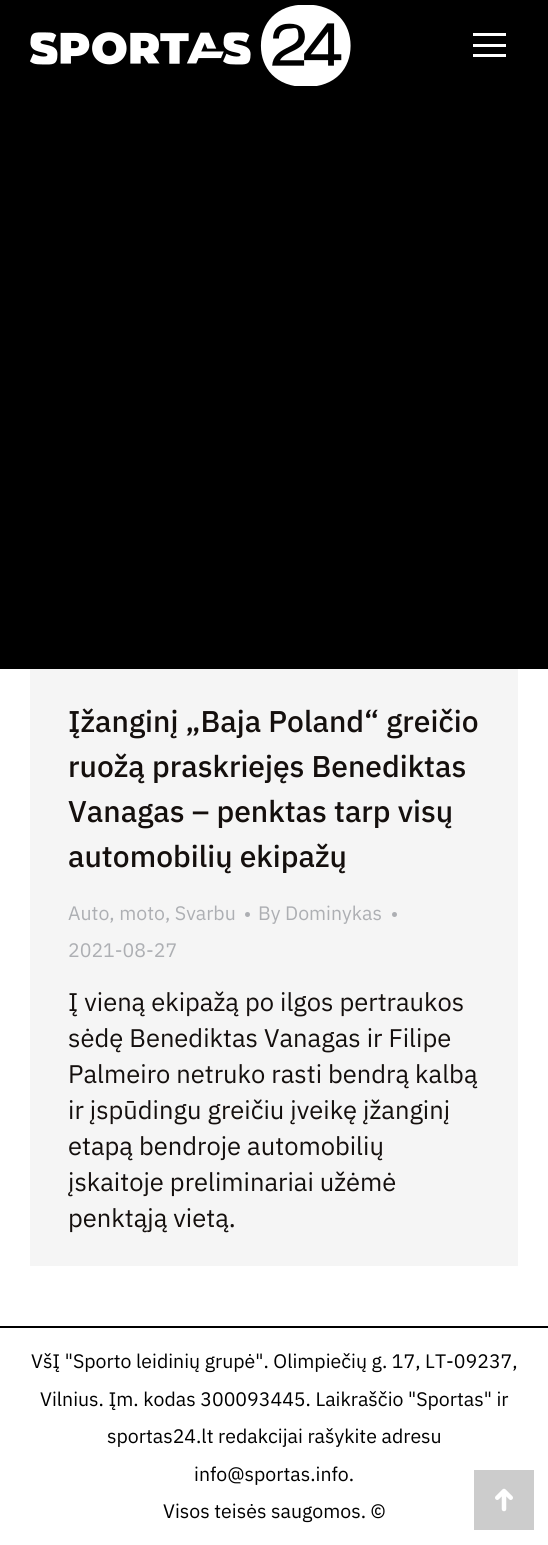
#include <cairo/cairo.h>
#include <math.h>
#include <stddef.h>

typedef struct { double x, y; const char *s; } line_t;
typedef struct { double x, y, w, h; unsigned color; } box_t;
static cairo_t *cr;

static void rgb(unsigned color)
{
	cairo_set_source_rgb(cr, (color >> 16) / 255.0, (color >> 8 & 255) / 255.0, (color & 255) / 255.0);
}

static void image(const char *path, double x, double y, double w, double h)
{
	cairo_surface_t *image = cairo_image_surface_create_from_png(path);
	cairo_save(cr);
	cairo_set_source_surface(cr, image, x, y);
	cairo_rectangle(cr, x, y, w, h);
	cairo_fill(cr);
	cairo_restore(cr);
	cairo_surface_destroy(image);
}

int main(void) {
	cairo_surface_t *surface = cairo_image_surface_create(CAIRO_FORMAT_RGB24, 548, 1545);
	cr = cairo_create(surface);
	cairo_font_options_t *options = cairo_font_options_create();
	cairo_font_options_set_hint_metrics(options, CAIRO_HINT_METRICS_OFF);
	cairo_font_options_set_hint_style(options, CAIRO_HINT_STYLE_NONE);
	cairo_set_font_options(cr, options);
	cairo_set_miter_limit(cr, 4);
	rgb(0xffffff);
	cairo_paint(cr);
	rgb(0x000000);
	cairo_rectangle(cr, 0, 0, 548, 669);
	cairo_fill(cr);
	image("img/1.png", 30, 5, 321, 81);
	{
		static const box_t items[] = {
			{473, 33, 33, 3, 0xffffff},
			{473, 44, 33, 3, 0xffffff},
			{473, 54, 33, 3, 0xffffff},
			{30, 669, 488, 597, 0xf5f5f5},
		};
		for (size_t i = 0; i < sizeof items / sizeof *items; i++) {
			rgb(items[i].color);
			cairo_rectangle(cr, items[i].x, items[i].y, items[i].w, items[i].h);
			cairo_fill(cr);
		}
	}
	rgb(0xadafb3);
	cairo_arc(cr, 247.5, 914.5, 2.5, 0, 2 * M_PI);
	cairo_fill(cr);
	cairo_arc(cr, 394.5, 914.5, 2.5, 0, 2 * M_PI);
	cairo_fill(cr);
	rgb(0x000000);
	cairo_rectangle(cr, 0, 1326, 548, 2);
	cairo_fill(cr);
	rgb(0xcccccc);
	cairo_rectangle(cr, 474, 1470, 60, 60);
	cairo_fill(cr);
	image("img/2.png", 495, 1488, 18, 24);
	cairo_select_font_face(cr, "IBM Plex Sans Medium", CAIRO_FONT_SLANT_NORMAL, CAIRO_FONT_WEIGHT_NORMAL);
	cairo_set_font_size(cr, 30);
	rgb(0x140f0d);
	{
		static const line_t items[] = {
			{68, 732, "Įžanginį „Baja Poland“ greičio"},
			{68, 777, "ruožą praskriejęs Benediktas"},
			{68, 822, "Vanagas – penktas tarp visų"},
			{68, 867, "automobilių ekipažų"},
		};
		for (size_t i = 0; i < sizeof items / sizeof *items; i++) {
			cairo_move_to(cr, items[i].x, items[i].y);
			cairo_show_text(cr, items[i].s);
		}
	}
	cairo_select_font_face(cr, "IBM Plex Sans", CAIRO_FONT_SLANT_NORMAL, CAIRO_FONT_WEIGHT_NORMAL);
	cairo_set_font_size(cr, 19.5);
	rgb(0xadafb3);
	{
		static const line_t items[] = {
			{68, 920, "Auto, moto, Svarbu"},
			{258, 920, "By Dominykas"},
			{68, 957, "2021-08-27"},
		};
		for (size_t i = 0; i < sizeof items / sizeof *items; i++) {
			cairo_move_to(cr, items[i].x, items[i].y);
			cairo_show_text(cr, items[i].s);
		}
	}
	cairo_set_font_size(cr, 25.5);
	rgb(0x140f0d);
	{
		static const line_t items[] = {
			{68, 1011, "Į vieną ekipažą po ilgos pertraukos"},
			{68, 1047, "sėdę Benediktas Vanagas ir Filipe"},
			{68, 1083, "Palmeiro netruko rasti bendrą kalbą"},
			{68, 1119, "ir įspūdingu greičiu įveikę įžanginį"},
			{68, 1155, "etapą bendroje automobilių"},
			{68, 1191, "įskaitoje preliminariai užėmė"},
			{68, 1227, "penktąją vietą."},
		};
		for (size_t i = 0; i < sizeof items / sizeof *items; i++) {
			cairo_move_to(cr, items[i].x, items[i].y);
			cairo_show_text(cr, items[i].s);
		}
	}
	cairo_set_font_size(cr, 19.5);
	rgb(0x000000);
	{
		static const line_t items[] = {
			{31, 1368, "VšĮ \"Sporto leidinių grupė\". Olimpiečių g. 17, LT-09237,"},
			{40, 1406, "Vilnius. Įm. kodas 300093445. Laikraščio \"Sportas\" ir"},
			{107, 1443, "sportas24.lt redakcijai rašykite adresu"},
			{194, 1481, "info@sportas.info."},
			{163, 1518, "Visos teisės saugomos. ©"},
		};
		for (size_t i = 0; i < sizeof items / sizeof *items; i++) {
			cairo_move_to(cr, items[i].x, items[i].y);
			cairo_show_text(cr, items[i].s);
		}
	}
	cairo_surface_write_to_png(surface, "page.png");
	cairo_font_options_destroy(options);
	cairo_destroy(cr);
	cairo_surface_destroy(surface);
	return 0;
}
